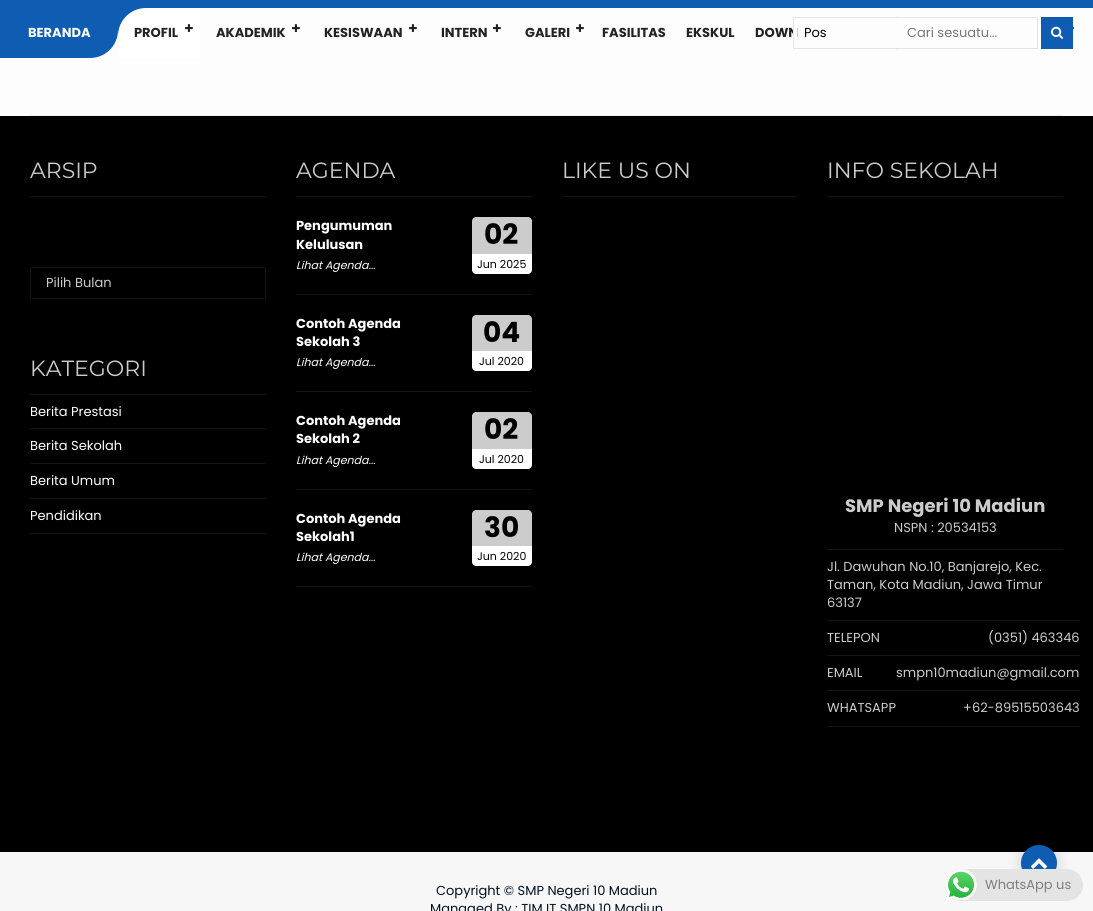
#include <cairo/cairo.h>
#include <math.h>
#include <stddef.h>

typedef struct { double x, y; const char *s; } line_t;
typedef struct { double x, y, w, h; unsigned color; } box_t;
static cairo_t *cr;

static void rgb(unsigned color)
{
	cairo_set_source_rgb(cr, (color >> 16) / 255.0, (color >> 8 & 255) / 255.0, (color & 255) / 255.0);
}

static void rrect(double x, double y, double w, double h, double r)
{
	cairo_new_sub_path(cr);
	cairo_arc(cr, x + w - r, y + h - r, r, 0, M_PI / 2);
	cairo_arc(cr, x + r, y + h - r, r, M_PI / 2, M_PI);
	cairo_arc(cr, x + r, y + r, r, M_PI, 1.5 * M_PI);
	cairo_arc(cr, x + w - r, y + r, r, 1.5 * M_PI, 2 * M_PI);
	cairo_close_path(cr);
}

static void soft_shadow(double x, double y, double w, double h, double r, double blur, double alpha)
{
	cairo_push_group_with_content(cr, CAIRO_CONTENT_ALPHA);
	cairo_set_operator(cr, CAIRO_OPERATOR_SOURCE);
	for (int i = 15; i >= -15 && fmin(w, h) + blur * i / 3 > 0; i -= 2) {
		double e = blur * i / 6;
		cairo_set_source_rgba(cr, 0, 0, 0, alpha * erfc((i - 1) / 8.5) / 2);
		rrect(x - e, y - e, w + 2 * e, h + 2 * e, fmax(0, fmin(r + e + blur * .6, fmin(w, h) / 2 + e)));
		cairo_fill(cr);
	}
	cairo_pattern_t *soft = cairo_pop_group(cr);
	cairo_mask(cr, soft);
	cairo_pattern_destroy(soft);
}

static void image(const char *path, double x, double y, double w, double h)
{
	cairo_surface_t *image = cairo_image_surface_create_from_png(path);
	cairo_save(cr);
	cairo_set_source_surface(cr, image, x, y);
	cairo_rectangle(cr, x, y, w, h);
	cairo_fill(cr);
	cairo_restore(cr);
	cairo_surface_destroy(image);
}

int main(void) {
	cairo_surface_t *surface = cairo_image_surface_create(CAIRO_FORMAT_RGB24, 1093, 911);
	cr = cairo_create(surface);
	cairo_font_options_t *options = cairo_font_options_create();
	cairo_font_options_set_hint_metrics(options, CAIRO_HINT_METRICS_OFF);
	cairo_font_options_set_hint_style(options, CAIRO_HINT_STYLE_NONE);
	cairo_set_font_options(cr, options);
	cairo_set_miter_limit(cr, 4);
	rgb(0xfdfdfd);
	cairo_paint(cr);
	rgb(0x0e5db2);
	cairo_rectangle(cr, 0, 0, 1093, 8);
	cairo_fill(cr);
	cairo_new_path(cr);
	cairo_move_to(cr, 0, 8);
	cairo_line_to(cr, 118, 8);
	cairo_line_to(cr, 118, 30);
	cairo_curve_to(cr, 118, 45.5, 105.5, 58, 90, 58);
	cairo_line_to(cr, 0, 58);
	cairo_close_path(cr);
	cairo_fill(cr);
	cairo_rectangle(cr, 118, 8, 28, 28);
	cairo_fill(cr);
	rgb(0xffffff);
	cairo_new_path(cr);
	cairo_move_to(cr, 146, 8);
	cairo_line_to(cr, 200, 8);
	cairo_line_to(cr, 200, 58);
	cairo_line_to(cr, 118, 58);
	cairo_line_to(cr, 118, 36);
	cairo_curve_to(cr, 118, 20.5, 130.5, 8, 146, 8);
	cairo_close_path(cr);
	cairo_fill(cr);
	image("img/1.png", 185, 24, 8, 8);
	image("img/1.png", 292, 24, 8, 8);
	image("img/1.png", 409, 24, 8, 8);
	image("img/1.png", 493, 24, 8, 8);
	image("img/1.png", 576, 24, 8, 8);
	image("img/2.png", 1073, 27, 1, 3);
	rgb(0xe6e6e6);
	cairo_new_path(cr);
	cairo_move_to(cr, 897, 17);
	cairo_line_to(cr, 1038, 17);
	cairo_line_to(cr, 1037, 18);
	cairo_line_to(cr, 897, 18);
	cairo_close_path(cr);
	cairo_fill(cr);
	cairo_set_source_rgba(cr, 0, 0, 0, 0.1);
	cairo_new_path(cr);
	cairo_move_to(cr, 793, 17);
	cairo_line_to(cr, 898, 17);
	cairo_line_to(cr, 898, 18);
	cairo_line_to(cr, 794, 18);
	cairo_close_path(cr);
	cairo_fill(cr);
	cairo_new_path(cr);
	cairo_move_to(cr, 1038, 17);
	cairo_line_to(cr, 1038, 49);
	cairo_line_to(cr, 1037, 48);
	cairo_line_to(cr, 1037, 18);
	cairo_close_path(cr);
	cairo_fill(cr);
	cairo_new_path(cr);
	cairo_move_to(cr, 1038, 49);
	cairo_line_to(cr, 897, 49);
	cairo_line_to(cr, 897, 48);
	cairo_line_to(cr, 1037, 48);
	cairo_close_path(cr);
	cairo_fill(cr);
	cairo_new_path(cr);
	cairo_move_to(cr, 898, 49);
	cairo_line_to(cr, 793, 49);
	cairo_line_to(cr, 794, 48);
	cairo_line_to(cr, 898, 48);
	cairo_close_path(cr);
	cairo_fill(cr);
	rgb(0x0e5db2);
	cairo_rectangle(cr, 1041, 17, 32, 32);
	cairo_fill(cr);
	image("img/3.png", 1051, 26, 12, 13);
	{
		static const box_t items[] = {
			{30, 115, 1033, 1, 0xeeeeee},
			{0, 116, 1093, 736, 0x000000},
			{30, 196, 236, 1, 0x131313},
		};
		for (size_t i = 0; i < sizeof items / sizeof *items; i++) {
			rgb(items[i].color);
			cairo_rectangle(cr, items[i].x, items[i].y, items[i].w, items[i].h);
			cairo_fill(cr);
		}
	}
	cairo_rectangle(cr, 30.5, 267.5, 235, 31);
	cairo_set_line_width(cr, 1);
	cairo_stroke(cr);
	{
		static const box_t items[] = {
			{30, 394, 236, 1, 0x131313},
			{30, 428, 236, 1, 0x131313},
			{30, 463, 236, 1, 0x131313},
			{30, 498, 236, 1, 0x131313},
			{30, 533, 236, 1, 0x131313},
			{296, 196, 236, 1, 0x131313},
			{296, 294, 236, 1, 0x131313},
		};
		for (size_t i = 0; i < sizeof items / sizeof *items; i++) {
			rgb(items[i].color);
			cairo_rectangle(cr, items[i].x, items[i].y, items[i].w, items[i].h);
			cairo_fill(cr);
		}
	}
	rgb(0xcccccc);
	cairo_new_path(cr);
	cairo_move_to(cr, 476, 217);
	cairo_line_to(cr, 528, 217);
	cairo_curve_to(cr, 530, 217, 532, 219, 532, 221);
	cairo_line_to(cr, 532, 254);
	cairo_line_to(cr, 472, 254);
	cairo_line_to(cr, 472, 221);
	cairo_curve_to(cr, 472, 219, 474, 217, 476, 217);
	cairo_close_path(cr);
	cairo_fill(cr);
	rgb(0xffffff);
	cairo_new_path(cr);
	cairo_move_to(cr, 472, 254);
	cairo_line_to(cr, 532, 254);
	cairo_line_to(cr, 532, 270);
	cairo_curve_to(cr, 532, 272, 530, 274, 528, 274);
	cairo_line_to(cr, 476, 274);
	cairo_curve_to(cr, 474, 274, 472, 272, 472, 270);
	cairo_close_path(cr);
	cairo_fill(cr);
	rgb(0x131313);
	cairo_rectangle(cr, 296, 391, 236, 1);
	cairo_fill(cr);
	rgb(0xcccccc);
	cairo_new_path(cr);
	cairo_move_to(cr, 476, 315);
	cairo_line_to(cr, 528, 315);
	cairo_curve_to(cr, 530, 315, 532, 317, 532, 319);
	cairo_line_to(cr, 532, 351);
	cairo_line_to(cr, 472, 351);
	cairo_line_to(cr, 472, 319);
	cairo_curve_to(cr, 472, 317, 474, 315, 476, 315);
	cairo_close_path(cr);
	cairo_fill(cr);
	rgb(0xffffff);
	cairo_new_path(cr);
	cairo_move_to(cr, 472, 351);
	cairo_line_to(cr, 532, 351);
	cairo_line_to(cr, 532, 367);
	cairo_curve_to(cr, 532, 369, 530, 371, 528, 371);
	cairo_line_to(cr, 476, 371);
	cairo_curve_to(cr, 474, 371, 472, 369, 472, 367);
	cairo_close_path(cr);
	cairo_fill(cr);
	rgb(0x131313);
	cairo_rectangle(cr, 296, 489, 236, 1);
	cairo_fill(cr);
	rgb(0xcccccc);
	cairo_new_path(cr);
	cairo_move_to(cr, 476, 412);
	cairo_line_to(cr, 528, 412);
	cairo_curve_to(cr, 530, 412, 532, 414, 532, 416);
	cairo_line_to(cr, 532, 449);
	cairo_line_to(cr, 472, 449);
	cairo_line_to(cr, 472, 416);
	cairo_curve_to(cr, 472, 414, 474, 412, 476, 412);
	cairo_close_path(cr);
	cairo_fill(cr);
	rgb(0xffffff);
	cairo_new_path(cr);
	cairo_move_to(cr, 472, 449);
	cairo_line_to(cr, 532, 449);
	cairo_line_to(cr, 532, 465);
	cairo_curve_to(cr, 532, 467, 530, 469, 528, 469);
	cairo_line_to(cr, 476, 469);
	cairo_curve_to(cr, 474, 469, 472, 467, 472, 465);
	cairo_close_path(cr);
	cairo_fill(cr);
	rgb(0x131313);
	cairo_rectangle(cr, 296, 586, 236, 1);
	cairo_fill(cr);
	rgb(0xcccccc);
	cairo_new_path(cr);
	cairo_move_to(cr, 476, 510);
	cairo_line_to(cr, 528, 510);
	cairo_curve_to(cr, 530, 510, 532, 512, 532, 514);
	cairo_line_to(cr, 532, 546);
	cairo_line_to(cr, 472, 546);
	cairo_line_to(cr, 472, 514);
	cairo_curve_to(cr, 472, 512, 474, 510, 476, 510);
	cairo_close_path(cr);
	cairo_fill(cr);
	rgb(0xffffff);
	cairo_new_path(cr);
	cairo_move_to(cr, 472, 546);
	cairo_line_to(cr, 532, 546);
	cairo_line_to(cr, 532, 562);
	cairo_curve_to(cr, 532, 564, 530, 566, 528, 566);
	cairo_line_to(cr, 476, 566);
	cairo_curve_to(cr, 474, 566, 472, 564, 472, 562);
	cairo_close_path(cr);
	cairo_fill(cr);
	{
		static const box_t items[] = {
			{562, 196, 235, 1, 0x131313},
			{827, 196, 236, 1, 0x131313},
			{827, 549, 236, 1, 0x131313},
			{827, 620, 253, 1, 0x131313},
			{827, 655, 253, 1, 0x131313},
			{827, 690, 253, 1, 0x131313},
			{827, 726, 253, 1, 0x131313},
			{0, 852, 1093, 59, 0xf7f7f7},
		};
		for (size_t i = 0; i < sizeof items / sizeof *items; i++) {
			rgb(items[i].color);
			cairo_rectangle(cr, items[i].x, items[i].y, items[i].w, items[i].h);
			cairo_fill(cr);
		}
	}
	rgb(0x000000);
	soft_shadow(1021, 845, 36, 36, 18, 7.5, 0.15);
	rgb(0x0e5db2);
	cairo_arc(cr, 1039, 863, 18, 0, 2 * M_PI);
	cairo_fill(cr);
	image("img/4.png", 1030, 858, 18, 11);
	rgb(0xe4e4e4);
	rrect(945, 869, 138, 32, 16);
	cairo_fill(cr);
	image("img/5.png", 945, 869, 32, 32);
	cairo_select_font_face(cr, "Poppins", CAIRO_FONT_SLANT_NORMAL, CAIRO_FONT_WEIGHT_BOLD);
	cairo_set_font_size(cr, 13);
	rgb(0xffffff);
	cairo_move_to(cr, 28, 37);
	cairo_show_text(cr, "BERANDA");
	rgb(0x222222);
	{
		static const line_t items[] = {
			{134, 37, "PROFIL"},
			{216, 37, "AKADEMIK"},
			{324, 37, "KESISWAAN"},
			{441, 37, "INTERN"},
			{525, 37, "GALERI"},
			{602, 37, "FASILITAS"},
			{686, 37, "EKSKUL"},
			{755, 37, "DOWN"},
		};
		for (size_t i = 0; i < sizeof items / sizeof *items; i++) {
			cairo_move_to(cr, items[i].x, items[i].y);
			cairo_show_text(cr, items[i].s);
		}
	}
	rgb(0xffffff);
	cairo_rectangle(cr, 793, 27, 4, 10);
	cairo_fill(cr);
	cairo_set_source_rgba(cr, 0, 0, 0, 0.1);
	cairo_new_path(cr);
	cairo_move_to(cr, 793, 49);
	cairo_line_to(cr, 793, 17);
	cairo_line_to(cr, 794, 18);
	cairo_line_to(cr, 794, 48);
	cairo_close_path(cr);
	cairo_fill(cr);
	cairo_select_font_face(cr, "Poppins", CAIRO_FONT_SLANT_NORMAL, CAIRO_FONT_WEIGHT_NORMAL);
	rgb(0x000000);
	cairo_move_to(cr, 804, 37);
	cairo_show_text(cr, "Pos");
	rgb(0x757575);
	cairo_move_to(cr, 907, 37);
	cairo_show_text(cr, "Cari sesuatu...");
	cairo_select_font_face(cr, "Montserrat", CAIRO_FONT_SLANT_NORMAL, CAIRO_FONT_WEIGHT_NORMAL);
	cairo_set_font_size(cr, 22);
	rgb(0xcccccc);
	cairo_move_to(cr, 30, 178);
	cairo_show_text(cr, "ARSIP");
	cairo_select_font_face(cr, "Poppins", CAIRO_FONT_SLANT_NORMAL, CAIRO_FONT_WEIGHT_NORMAL);
	cairo_set_font_size(cr, 13);
	cairo_move_to(cr, 46, 287);
	cairo_show_text(cr, "Pilih Bulan");
	cairo_select_font_face(cr, "Montserrat", CAIRO_FONT_SLANT_NORMAL, CAIRO_FONT_WEIGHT_NORMAL);
	cairo_set_font_size(cr, 22);
	cairo_move_to(cr, 30, 376);
	cairo_show_text(cr, "KATEGORI");
	cairo_select_font_face(cr, "Poppins", CAIRO_FONT_SLANT_NORMAL, CAIRO_FONT_WEIGHT_NORMAL);
	cairo_set_font_size(cr, 13);
	rgb(0xffffff);
	{
		static const line_t items[] = {
			{30, 416, "Berita Prestasi"},
			{30, 450, "Berita Sekolah"},
			{30, 485, "Berita Umum"},
			{30, 520, "Pendidikan"},
		};
		for (size_t i = 0; i < sizeof items / sizeof *items; i++) {
			cairo_move_to(cr, items[i].x, items[i].y);
			cairo_show_text(cr, items[i].s);
		}
	}
	cairo_select_font_face(cr, "Montserrat", CAIRO_FONT_SLANT_NORMAL, CAIRO_FONT_WEIGHT_NORMAL);
	cairo_set_font_size(cr, 22);
	rgb(0xcccccc);
	cairo_move_to(cr, 296, 178);
	cairo_show_text(cr, "AGENDA");
	cairo_select_font_face(cr, "Poppins", CAIRO_FONT_SLANT_NORMAL, CAIRO_FONT_WEIGHT_BOLD);
	cairo_set_font_size(cr, 13);
	rgb(0xffffff);
	cairo_move_to(cr, 296, 230);
	cairo_show_text(cr, "Pengumuman");
	cairo_move_to(cr, 296, 249);
	cairo_show_text(cr, "Kelulusan");
	cairo_select_font_face(cr, "Poppins", CAIRO_FONT_SLANT_ITALIC, CAIRO_FONT_WEIGHT_NORMAL);
	cairo_set_font_size(cr, 11);
	cairo_move_to(cr, 296, 269);
	cairo_show_text(cr, "Lihat Agenda...");
	cairo_select_font_face(cr, "Poppins", CAIRO_FONT_SLANT_NORMAL, CAIRO_FONT_WEIGHT_BOLD);
	cairo_set_font_size(cr, 28);
	rgb(0x000000);
	cairo_move_to(cr, 484, 244);
	cairo_show_text(cr, "02");
	cairo_select_font_face(cr, "Poppins", CAIRO_FONT_SLANT_NORMAL, CAIRO_FONT_WEIGHT_NORMAL);
	cairo_set_font_size(cr, 11);
	cairo_move_to(cr, 477, 268);
	cairo_show_text(cr, "Jun 2025");
	cairo_select_font_face(cr, "Poppins", CAIRO_FONT_SLANT_NORMAL, CAIRO_FONT_WEIGHT_BOLD);
	cairo_set_font_size(cr, 13);
	rgb(0xffffff);
	cairo_move_to(cr, 296, 328);
	cairo_show_text(cr, "Contoh Agenda");
	cairo_move_to(cr, 296, 346);
	cairo_show_text(cr, "Sekolah 3");
	cairo_select_font_face(cr, "Poppins", CAIRO_FONT_SLANT_ITALIC, CAIRO_FONT_WEIGHT_NORMAL);
	cairo_set_font_size(cr, 11);
	cairo_move_to(cr, 296, 366);
	cairo_show_text(cr, "Lihat Agenda...");
	cairo_select_font_face(cr, "Poppins", CAIRO_FONT_SLANT_NORMAL, CAIRO_FONT_WEIGHT_BOLD);
	cairo_set_font_size(cr, 28);
	rgb(0x000000);
	cairo_move_to(cr, 483, 342);
	cairo_show_text(cr, "04");
	cairo_select_font_face(cr, "Poppins", CAIRO_FONT_SLANT_NORMAL, CAIRO_FONT_WEIGHT_NORMAL);
	cairo_set_font_size(cr, 11);
	cairo_move_to(cr, 479, 365);
	cairo_show_text(cr, "Jul 2020");
	cairo_select_font_face(cr, "Poppins", CAIRO_FONT_SLANT_NORMAL, CAIRO_FONT_WEIGHT_BOLD);
	cairo_set_font_size(cr, 13);
	rgb(0xffffff);
	cairo_move_to(cr, 296, 425);
	cairo_show_text(cr, "Contoh Agenda");
	cairo_move_to(cr, 296, 443);
	cairo_show_text(cr, "Sekolah 2");
	cairo_select_font_face(cr, "Poppins", CAIRO_FONT_SLANT_ITALIC, CAIRO_FONT_WEIGHT_NORMAL);
	cairo_set_font_size(cr, 11);
	cairo_move_to(cr, 296, 464);
	cairo_show_text(cr, "Lihat Agenda...");
	cairo_select_font_face(cr, "Poppins", CAIRO_FONT_SLANT_NORMAL, CAIRO_FONT_WEIGHT_BOLD);
	cairo_set_font_size(cr, 28);
	rgb(0x000000);
	cairo_move_to(cr, 484, 439);
	cairo_show_text(cr, "02");
	cairo_select_font_face(cr, "Poppins", CAIRO_FONT_SLANT_NORMAL, CAIRO_FONT_WEIGHT_NORMAL);
	cairo_set_font_size(cr, 11);
	cairo_move_to(cr, 479, 463);
	cairo_show_text(cr, "Jul 2020");
	cairo_select_font_face(cr, "Poppins", CAIRO_FONT_SLANT_NORMAL, CAIRO_FONT_WEIGHT_BOLD);
	cairo_set_font_size(cr, 13);
	rgb(0xffffff);
	cairo_move_to(cr, 296, 523);
	cairo_show_text(cr, "Contoh Agenda");
	cairo_move_to(cr, 296, 541);
	cairo_show_text(cr, "Sekolah1");
	cairo_select_font_face(cr, "Poppins", CAIRO_FONT_SLANT_ITALIC, CAIRO_FONT_WEIGHT_NORMAL);
	cairo_set_font_size(cr, 11);
	cairo_move_to(cr, 296, 561);
	cairo_show_text(cr, "Lihat Agenda...");
	cairo_select_font_face(cr, "Poppins", CAIRO_FONT_SLANT_NORMAL, CAIRO_FONT_WEIGHT_BOLD);
	cairo_set_font_size(cr, 28);
	rgb(0x000000);
	cairo_move_to(cr, 484, 537);
	cairo_show_text(cr, "30");
	cairo_select_font_face(cr, "Poppins", CAIRO_FONT_SLANT_NORMAL, CAIRO_FONT_WEIGHT_NORMAL);
	cairo_set_font_size(cr, 11);
	cairo_move_to(cr, 477, 560);
	cairo_show_text(cr, "Jun 2020");
	cairo_select_font_face(cr, "Montserrat", CAIRO_FONT_SLANT_NORMAL, CAIRO_FONT_WEIGHT_NORMAL);
	cairo_set_font_size(cr, 22);
	rgb(0xcccccc);
	cairo_move_to(cr, 562, 178);
	cairo_show_text(cr, "LIKE US ON");
	cairo_move_to(cr, 827, 178);
	cairo_show_text(cr, "INFO SEKOLAH");
	cairo_select_font_face(cr, "Poppins", CAIRO_FONT_SLANT_NORMAL, CAIRO_FONT_WEIGHT_BOLD);
	cairo_set_font_size(cr, 18);
	cairo_move_to(cr, 845, 512);
	cairo_show_text(cr, "SMP Negeri 10 Madiun");
	cairo_select_font_face(cr, "Poppins", CAIRO_FONT_SLANT_NORMAL, CAIRO_FONT_WEIGHT_NORMAL);
	cairo_set_font_size(cr, 13);
	{
		static const line_t items[] = {
			{894, 532, "NSPN : 20534153"},
			{827, 571, "Jl. Dawuhan No.10, Banjarejo, Kec."},
			{827, 589, "Taman, Kota Madiun, Jawa Timur"},
			{827, 607, "63137"},
			{827, 642, "TELEPON"},
			{988, 642, "(0351) 463346"},
			{827, 677, "EMAIL"},
			{896, 677, "smpn10madiun@gmail.com"},
			{827, 712, "WHATSAPP"},
			{963, 712, "+62-89515503643"},
		};
		for (size_t i = 0; i < sizeof items / sizeof *items; i++) {
			cairo_move_to(cr, items[i].x, items[i].y);
			cairo_show_text(cr, items[i].s);
		}
	}
	rgb(0x001122);
	cairo_move_to(cr, 436, 895);
	cairo_show_text(cr, "Copyright © SMP Negeri 10 Madiun");
	cairo_move_to(cr, 430, 913);
	cairo_show_text(cr, "Managed By : TIM IT SMPN 10 Madiun");
	rgb(0x7f7d7d);
	cairo_move_to(cr, 985, 889);
	cairo_show_text(cr, "WhatsApp us");
	cairo_surface_write_to_png(surface, "page.png");
	cairo_font_options_destroy(options);
	cairo_destroy(cr);
	cairo_surface_destroy(surface);
	return 0;
}
